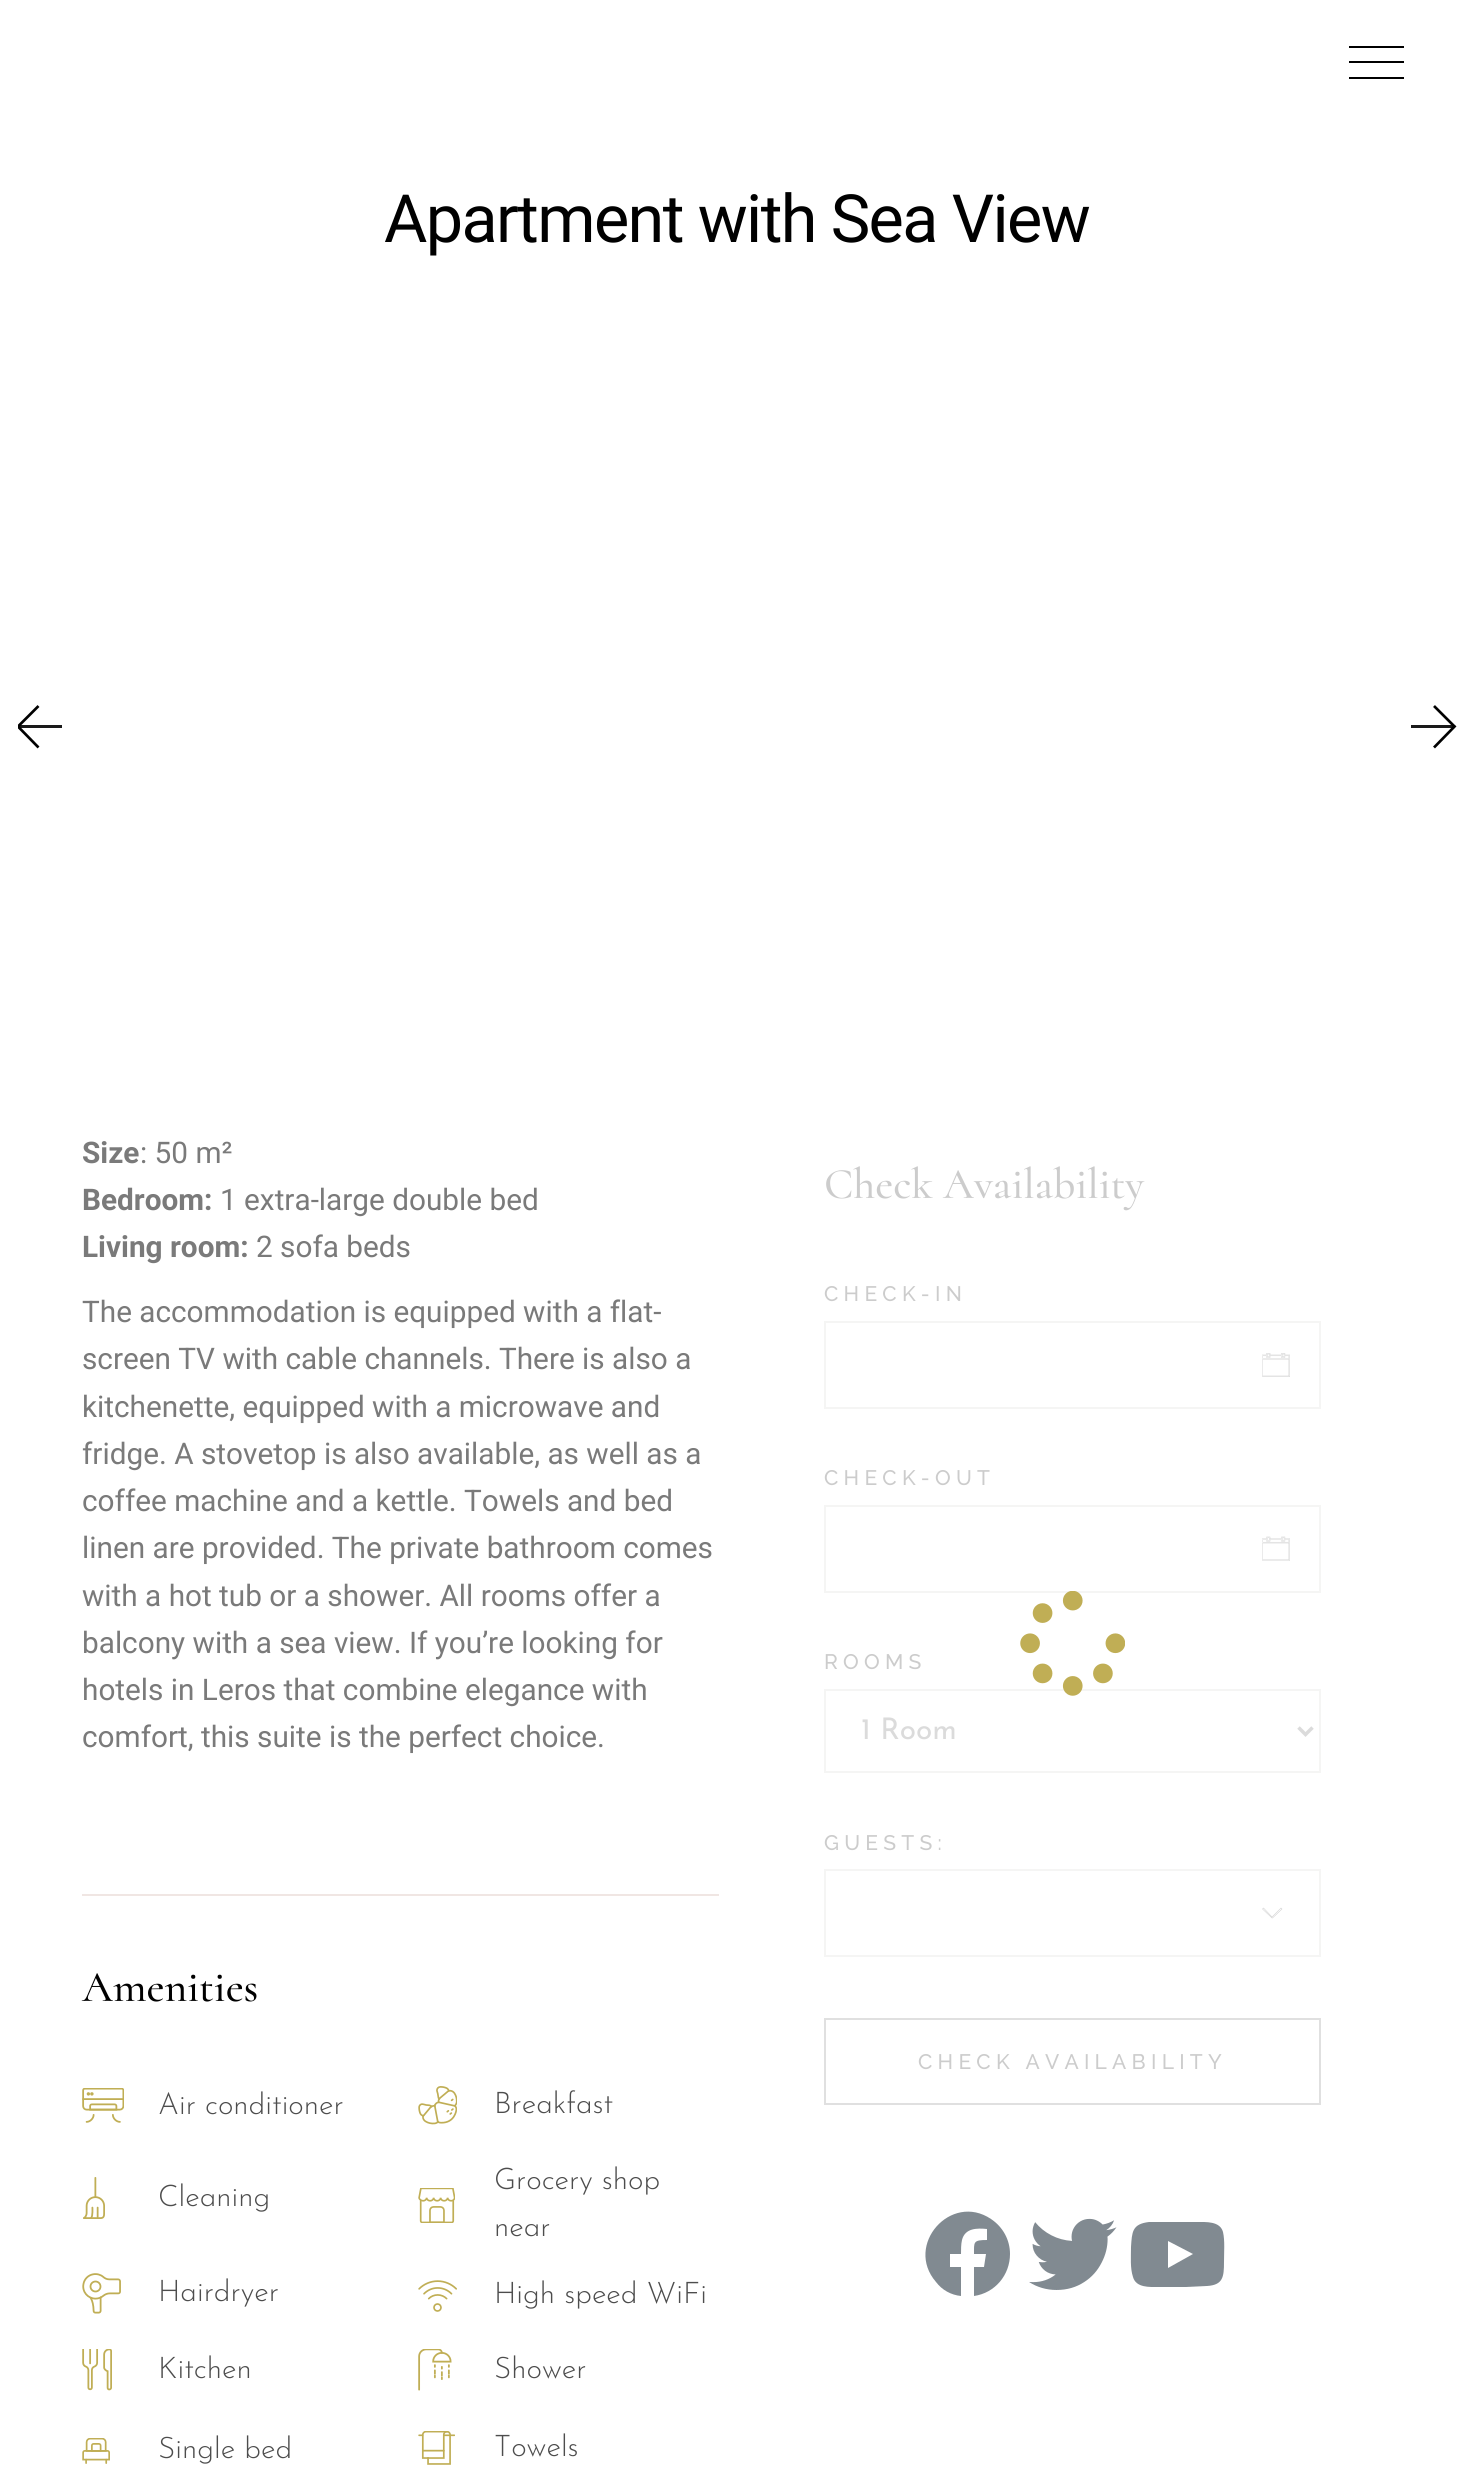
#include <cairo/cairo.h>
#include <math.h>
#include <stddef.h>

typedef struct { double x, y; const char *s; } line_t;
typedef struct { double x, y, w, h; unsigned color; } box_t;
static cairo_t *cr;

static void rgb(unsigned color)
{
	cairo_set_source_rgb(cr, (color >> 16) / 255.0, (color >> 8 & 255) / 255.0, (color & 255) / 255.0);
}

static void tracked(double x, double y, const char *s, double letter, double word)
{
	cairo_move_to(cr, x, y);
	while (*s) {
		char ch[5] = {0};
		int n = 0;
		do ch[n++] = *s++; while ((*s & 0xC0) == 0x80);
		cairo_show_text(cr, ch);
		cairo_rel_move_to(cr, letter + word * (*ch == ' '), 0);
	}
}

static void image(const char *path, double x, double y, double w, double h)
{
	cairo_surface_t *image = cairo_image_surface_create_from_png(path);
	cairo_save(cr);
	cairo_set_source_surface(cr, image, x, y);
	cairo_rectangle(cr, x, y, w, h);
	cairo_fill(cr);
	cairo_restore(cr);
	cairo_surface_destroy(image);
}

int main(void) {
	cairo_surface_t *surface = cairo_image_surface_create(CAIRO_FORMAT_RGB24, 1473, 2477);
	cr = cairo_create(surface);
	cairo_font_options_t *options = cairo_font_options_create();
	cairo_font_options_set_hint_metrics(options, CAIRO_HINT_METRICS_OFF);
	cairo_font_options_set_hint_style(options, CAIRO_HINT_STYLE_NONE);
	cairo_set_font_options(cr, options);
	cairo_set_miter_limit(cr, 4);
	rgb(0xffffff);
	cairo_paint(cr);
	{
		static const box_t items[] = {
			{1349, 46, 55, 2, 0x000000},
			{1349, 61, 55, 2, 0x000000},
			{1349, 77, 55, 2, 0x000000},
			{18, 725, 44, 3, 0x1a1a1a},
		};
		for (size_t i = 0; i < sizeof items / sizeof *items; i++) {
			rgb(items[i].color);
			cairo_rectangle(cr, items[i].x, items[i].y, items[i].w, items[i].h);
			cairo_fill(cr);
		}
	}
	cairo_save(cr);
	cairo_rectangle(cr, 18, 705, 45, 44);
	cairo_clip(cr);
	cairo_new_path(cr);
	cairo_move_to(cr, 17.5, 727);
	cairo_line_to(cr, 38.5, 706);
	cairo_move_to(cr, 17, 725.5);
	cairo_line_to(cr, 38.5, 747.5);
	rgb(0x000000);
	cairo_set_line_width(cr, 2.7);
	cairo_stroke(cr);
	cairo_restore(cr);
	cairo_rectangle(cr, 1411, 725, 44, 3);
	cairo_fill(cr);
	cairo_new_path(cr);
	cairo_move_to(cr, 1434, 706);
	cairo_line_to(cr, 1455, 727);
	cairo_move_to(cr, 1434, 747.5);
	cairo_line_to(cr, 1455.5, 725.5);
	rgb(0x000000);
	cairo_set_line_width(cr, 2.7);
	cairo_stroke(cr);
	rgb(0xf0e6e3);
	cairo_rectangle(cr, 82, 1894, 637, 2);
	cairo_fill(cr);
	image("img/1.png", 82, 2088, 42, 35);
	image("img/2.png", 418, 2086, 39, 39);
	image("img/3.png", 83, 2177, 22, 42);
	image("img/4.png", 418, 2188, 37, 35);
	image("img/5.png", 82, 2273, 39, 41);
	image("img/6.png", 418, 2280, 39, 32);
	image("img/7.png", 82, 2349, 30, 42);
	image("img/8.png", 418, 2349, 34, 42);
	image("img/9.png", 82, 2438, 28, 26);
	image("img/10.png", 418, 2431, 37, 34);
	cairo_rectangle(cr, 825, 1322, 495, 86);
	rgb(0xf5f5f4);
	cairo_set_line_width(cr, 2);
	cairo_stroke(cr);
	image("img/11.png", 1262, 1353, 28, 24);
	cairo_rectangle(cr, 825, 1506, 495, 86);
	cairo_stroke(cr);
	image("img/12.png", 1262, 1536, 28, 25);
	cairo_rectangle(cr, 825, 1690, 495, 82);
	cairo_stroke(cr);
	cairo_new_path(cr);
	cairo_move_to(cr, 1298.5, 1727.5);
	cairo_line_to(cr, 1305.5, 1734.5);
	cairo_line_to(cr, 1312.5, 1727.5);
	rgb(0xdbdbdb);
	cairo_set_line_width(cr, 3.5);
	cairo_stroke(cr);
	cairo_rectangle(cr, 825, 1870, 495, 86);
	rgb(0xf5f5f4);
	cairo_set_line_width(cr, 2);
	cairo_stroke(cr);
	cairo_new_path(cr);
	cairo_move_to(cr, 1281, 1908);
	cairo_line_to(cr, 1272, 1917);
	cairo_line_to(cr, 1263.5, 1908);
	cairo_line_to(cr, 1262.5, 1909);
	cairo_line_to(cr, 1272, 1918);
	cairo_line_to(cr, 1272.5, 1918);
	cairo_line_to(cr, 1282, 1909);
	cairo_close_path(cr);
	rgb(0xcccccc);
	cairo_set_line_width(cr, 0.5);
	cairo_stroke(cr);
	cairo_rectangle(cr, 825, 2019, 495, 85);
	rgb(0xe0e0e0);
	cairo_set_line_width(cr, 2);
	cairo_stroke(cr);
	image("img/13.png", 1020, 1591, 105, 105);
	rgb(0x818a91);
	cairo_new_path(cr);
	cairo_move_to(cr, 1010, 2254);
	cairo_curve_to(cr, 1010, 2275, 995, 2293, 974, 2296);
	cairo_line_to(cr, 974, 2267);
	cairo_line_to(cr, 984, 2267);
	cairo_line_to(cr, 986, 2254);
	cairo_line_to(cr, 974, 2254);
	cairo_curve_to(cr, 974, 2242, 973, 2240, 987, 2240);
	cairo_line_to(cr, 987, 2229);
	cairo_curve_to(cr, 977, 2228, 965, 2228, 962, 2240);
	cairo_curve_to(cr, 961, 2244, 961, 2250, 961, 2254);
	cairo_line_to(cr, 950, 2254);
	cairo_line_to(cr, 950, 2267);
	cairo_line_to(cr, 961, 2267);
	cairo_line_to(cr, 961, 2296);
	cairo_curve_to(cr, 951, 2295, 942, 2290, 936, 2282);
	cairo_curve_to(cr, 904, 2245, 951, 2192, 991, 2219);
	cairo_curve_to(cr, 1003, 2227, 1010, 2240, 1010, 2254);
	cairo_close_path(cr);
	cairo_fill(cr);
	image("img/14.png", 1029, 2218, 88, 72);
	cairo_new_path(cr);
	cairo_move_to(cr, 1223, 2232);
	cairo_curve_to(cr, 1225, 2241, 1224, 2252, 1224, 2262);
	cairo_curve_to(cr, 1224, 2277, 1223, 2285, 1207, 2286);
	cairo_line_to(cr, 1186, 2287);
	cairo_line_to(cr, 1158, 2287);
	cairo_curve_to(cr, 1150, 2287, 1136, 2288, 1133, 2277);
	cairo_curve_to(cr, 1130, 2268, 1131, 2257, 1131, 2247);
	cairo_curve_to(cr, 1132, 2232, 1132, 2224, 1149, 2222);
	cairo_line_to(cr, 1170, 2222);
	cairo_line_to(cr, 1197, 2222);
	cairo_curve_to(cr, 1206, 2222, 1220, 2221, 1223, 2232);
	cairo_close_path(cr);
	cairo_move_to(cr, 1168, 2268);
	cairo_line_to(cr, 1193, 2254);
	cairo_line_to(cr, 1168, 2241);
	cairo_close_path(cr);
	cairo_fill(cr);
	cairo_select_font_face(cr, "Roboto", CAIRO_FONT_SLANT_NORMAL, CAIRO_FONT_WEIGHT_NORMAL);
	cairo_set_font_size(cr, 66.5);
	rgb(0x000000);
	tracked(384, 242, "Apartment with Sea View", -1.6, 0);
	cairo_select_font_face(cr, "Roboto", CAIRO_FONT_SLANT_NORMAL, CAIRO_FONT_WEIGHT_BOLD);
	cairo_set_font_size(cr, 29.75);
	rgb(0x7a7a7a);
	cairo_move_to(cr, 82, 1163);
	cairo_show_text(cr, "Size");
	cairo_select_font_face(cr, "Roboto", CAIRO_FONT_SLANT_NORMAL, CAIRO_FONT_WEIGHT_NORMAL);
	cairo_move_to(cr, 140, 1163);
	cairo_show_text(cr, ": 50 m²");
	cairo_select_font_face(cr, "Roboto", CAIRO_FONT_SLANT_NORMAL, CAIRO_FONT_WEIGHT_BOLD);
	cairo_move_to(cr, 82, 1210);
	cairo_show_text(cr, "Bedroom:");
	cairo_select_font_face(cr, "Roboto", CAIRO_FONT_SLANT_NORMAL, CAIRO_FONT_WEIGHT_NORMAL);
	cairo_move_to(cr, 220, 1210);
	cairo_show_text(cr, "1 extra-large double bed");
	cairo_select_font_face(cr, "Roboto", CAIRO_FONT_SLANT_NORMAL, CAIRO_FONT_WEIGHT_BOLD);
	cairo_move_to(cr, 82, 1257);
	cairo_show_text(cr, "Living room:");
	cairo_select_font_face(cr, "Roboto", CAIRO_FONT_SLANT_NORMAL, CAIRO_FONT_WEIGHT_NORMAL);
	{
		static const line_t items[] = {
			{256, 1257, "2 sofa beds"},
			{82, 1322, "The accommodation is equipped with a flat-"},
			{82, 1369, "screen TV with cable channels. There is also a"},
			{82, 1417, "kitchenette, equipped with a microwave and"},
			{82, 1464, "fridge. A stovetop is also available, as well as a"},
			{82, 1511, "coffee machine and a kettle. Towels and bed"},
			{82, 1558, "linen are provided. The private bathroom comes"},
			{82, 1606, "with a hot tub or a shower. All rooms offer a"},
			{82, 1653, "balcony with a sea view. If you’re looking for"},
			{82, 1700, "hotels in Leros that combine elegance with"},
			{82, 1747, "comfort, this suite is the perfect choice."},
		};
		for (size_t i = 0; i < sizeof items / sizeof *items; i++) {
			cairo_move_to(cr, items[i].x, items[i].y);
			cairo_show_text(cr, items[i].s);
		}
	}
	cairo_select_font_face(cr, "Cormorant Medium", CAIRO_FONT_SLANT_NORMAL, CAIRO_FONT_WEIGHT_NORMAL);
	cairo_set_font_size(cr, 43.75);
	rgb(0x000000);
	cairo_move_to(cr, 82, 2001);
	cairo_show_text(cr, "Amenities");
	cairo_select_font_face(cr, "Josefin Sans Light", CAIRO_FONT_SLANT_NORMAL, CAIRO_FONT_WEIGHT_NORMAL);
	cairo_set_font_size(cr, 29.75);
	rgb(0x4d4d4d);
	{
		static const line_t items[] = {
			{158, 2114, "Air conditioner"},
			{494, 2113, "Breakfast"},
			{158, 2206, "Cleaning"},
			{494, 2189, "Grocery shop"},
			{494, 2236, "near"},
			{158, 2301, "Hairdryer"},
			{494, 2303, "High speed WiFi"},
			{158, 2378, "Kitchen"},
			{494, 2378, "Shower"},
			{158, 2458, "Single bed"},
			{494, 2456, "Towels"},
		};
		for (size_t i = 0; i < sizeof items / sizeof *items; i++) {
			cairo_move_to(cr, items[i].x, items[i].y);
			cairo_show_text(cr, items[i].s);
		}
	}
	cairo_select_font_face(cr, "Cormorant Medium", CAIRO_FONT_SLANT_NORMAL, CAIRO_FONT_WEIGHT_NORMAL);
	cairo_set_font_size(cr, 43.75);
	rgb(0xcccccc);
	cairo_move_to(cr, 824, 1198);
	cairo_show_text(cr, "Check Availability");
	cairo_select_font_face(cr, "Raleway Medium", CAIRO_FONT_SLANT_NORMAL, CAIRO_FONT_WEIGHT_NORMAL);
	cairo_set_font_size(cr, 21);
	{
		static const line_t items[] = {
			{824, 1301, "CHECK-IN"},
			{824, 1485, "CHECK-OUT"},
			{824, 1669, "ROOMS"},
		};
		for (size_t i = 0; i < sizeof items / sizeof *items; i++) {
			tracked(items[i].x, items[i].y, items[i].s, 5.25, 0);
		}
	}
	cairo_select_font_face(cr, "Josefin Sans", CAIRO_FONT_SLANT_NORMAL, CAIRO_FONT_WEIGHT_NORMAL);
	cairo_set_font_size(cr, 29.75);
	rgb(0xdbdbdb);
	cairo_move_to(cr, 861, 1739);
	cairo_show_text(cr, "1 Room");
	cairo_select_font_face(cr, "Raleway Medium", CAIRO_FONT_SLANT_NORMAL, CAIRO_FONT_WEIGHT_NORMAL);
	cairo_set_font_size(cr, 21);
	rgb(0xcccccc);
	tracked(824, 1850, "GUESTS:", 5.25, 0);
	tracked(918, 2069, "CHECK AVAILABILITY", 5.25, 0);
	cairo_surface_write_to_png(surface, "page.png");
	cairo_font_options_destroy(options);
	cairo_destroy(cr);
	cairo_surface_destroy(surface);
	return 0;
}
